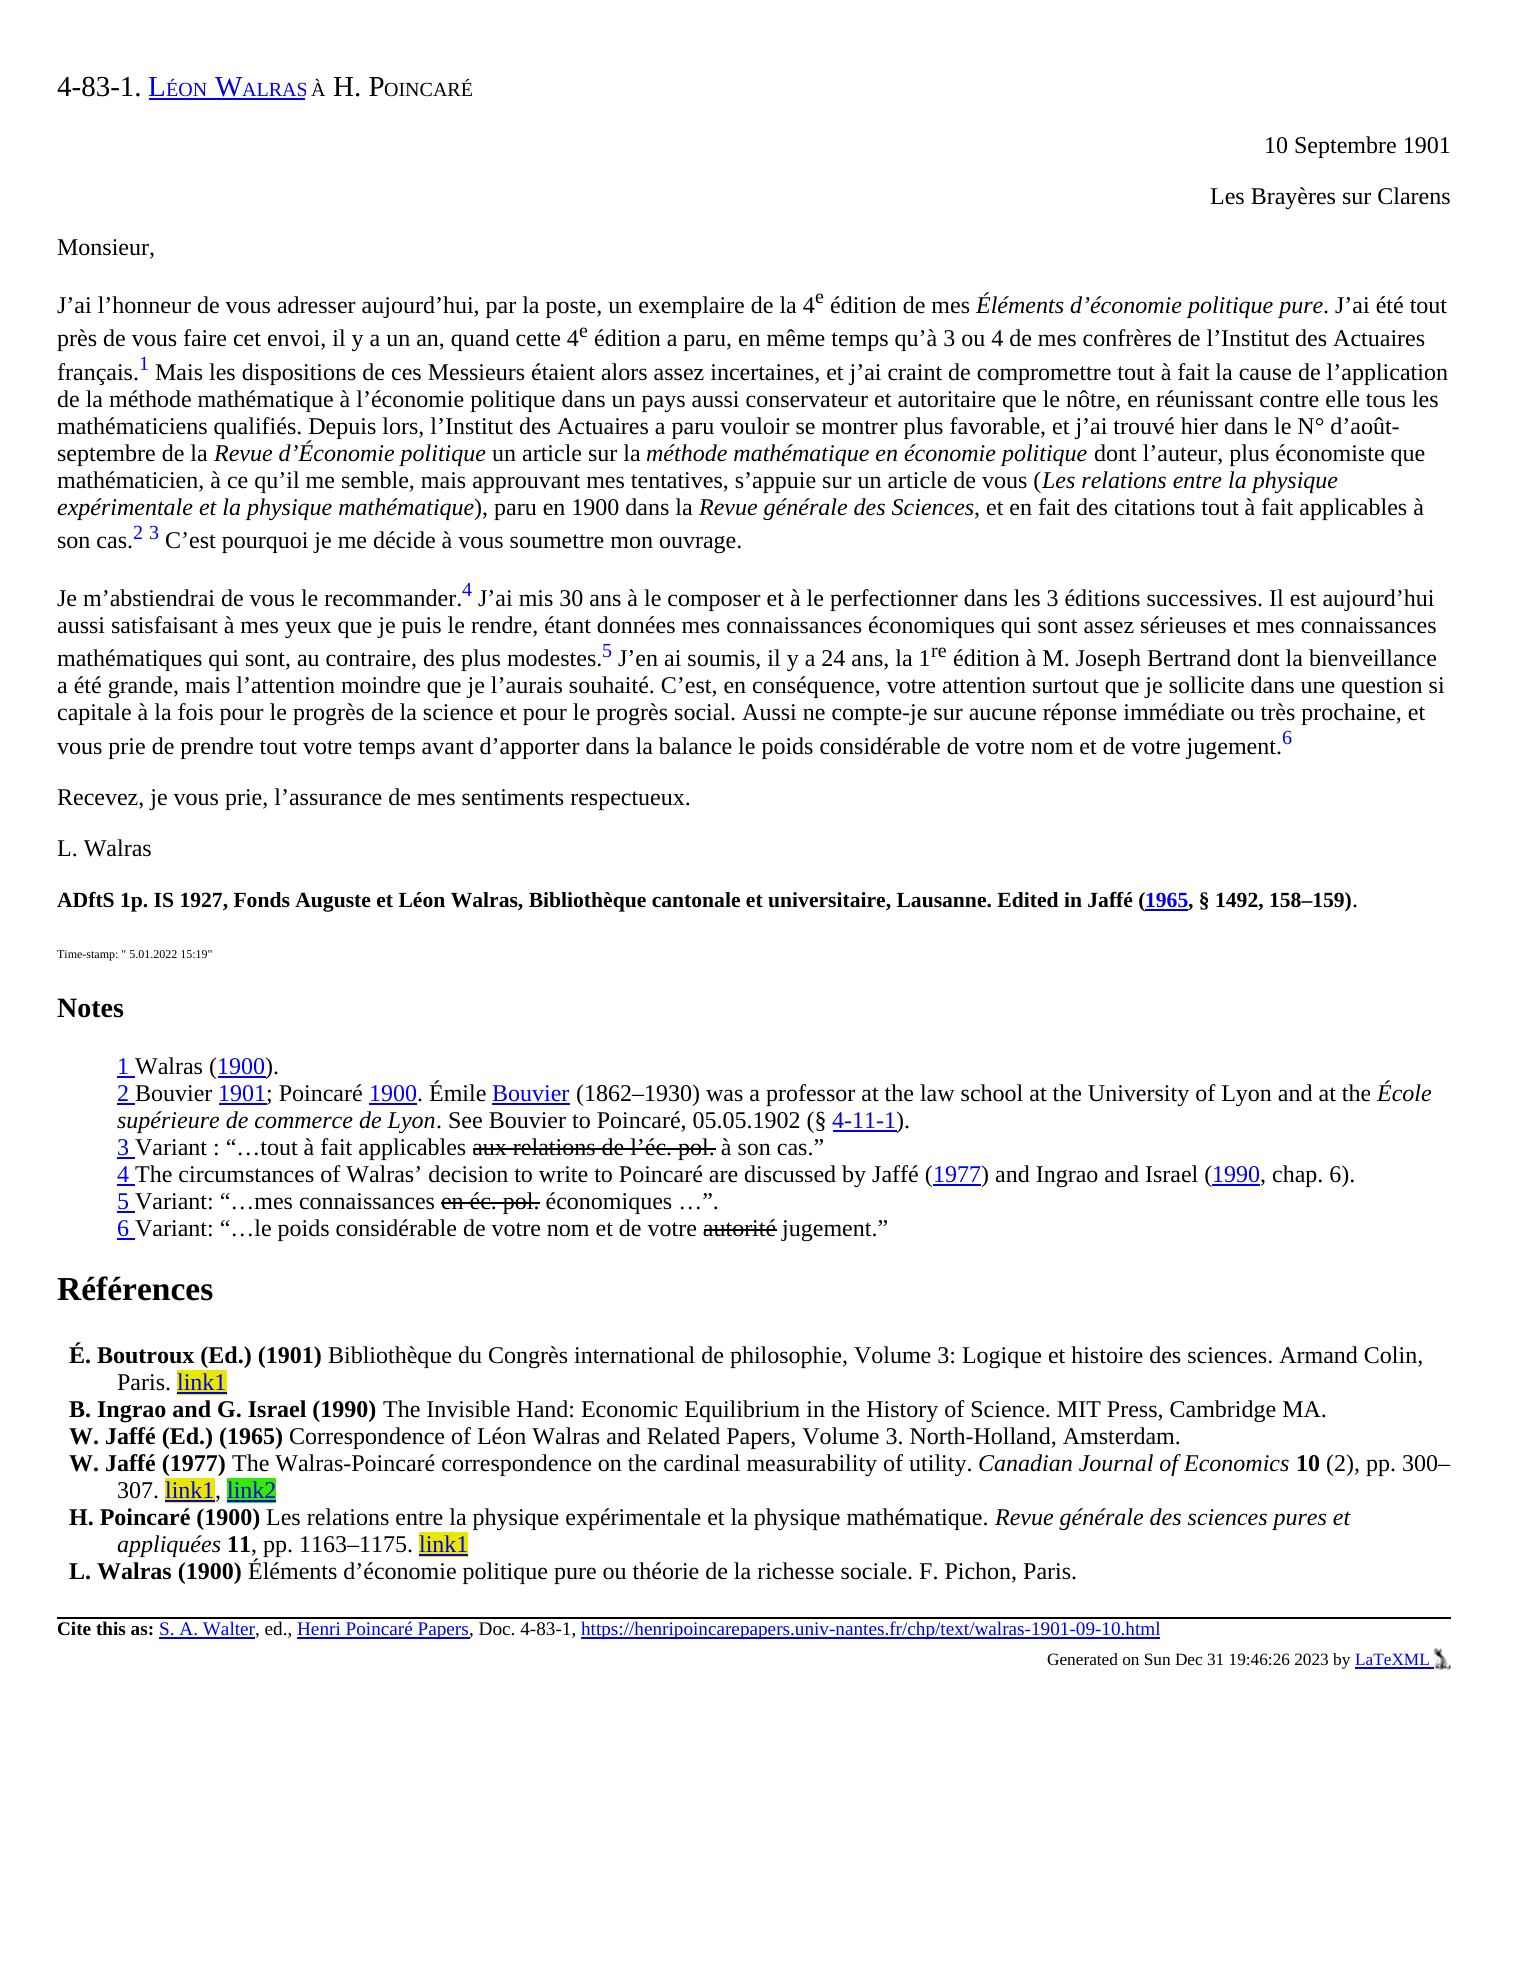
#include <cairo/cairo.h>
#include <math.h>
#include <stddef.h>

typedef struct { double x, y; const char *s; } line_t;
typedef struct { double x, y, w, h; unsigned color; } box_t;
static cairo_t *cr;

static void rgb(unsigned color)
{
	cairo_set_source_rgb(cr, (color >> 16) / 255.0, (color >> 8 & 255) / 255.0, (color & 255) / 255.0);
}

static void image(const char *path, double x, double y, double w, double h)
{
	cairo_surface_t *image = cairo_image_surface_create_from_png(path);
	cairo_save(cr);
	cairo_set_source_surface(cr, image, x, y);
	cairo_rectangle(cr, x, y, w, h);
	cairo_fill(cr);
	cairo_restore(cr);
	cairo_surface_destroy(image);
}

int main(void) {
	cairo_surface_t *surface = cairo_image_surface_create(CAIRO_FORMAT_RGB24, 1530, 1985);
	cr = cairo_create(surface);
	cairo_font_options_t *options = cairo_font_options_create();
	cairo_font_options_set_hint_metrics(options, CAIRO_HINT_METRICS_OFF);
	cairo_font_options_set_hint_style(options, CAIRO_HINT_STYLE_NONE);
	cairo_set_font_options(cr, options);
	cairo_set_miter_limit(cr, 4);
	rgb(0xffffff);
	cairo_paint(cr);
	{
		static const box_t items[] = {
			{149, 98, 156, 2, 0x0000ee},
			{1145, 909, 43, 2, 0x0000ee},
			{117, 1076, 18, 2, 0x0000ee},
			{218, 1076, 48, 2, 0x0000ee},
			{117, 1103, 18, 2, 0x0000ee},
			{219, 1103, 48, 2, 0x0000ee},
			{369, 1103, 48, 2, 0x0000ee},
			{492, 1103, 78, 2, 0x0000ee},
			{833, 1130, 64, 2, 0x0000ee},
			{117, 1157, 18, 2, 0x0000ee},
			{473, 1148, 243, 2, 0x000000},
			{117, 1184, 18, 2, 0x0000ee},
			{933, 1184, 48, 2, 0x0000ee},
			{1212, 1184, 48, 2, 0x0000ee},
			{117, 1211, 18, 2, 0x0000ee},
			{441, 1202, 99, 2, 0x000000},
			{117, 1238, 18, 2, 0x0000ee},
			{704, 1229, 73, 2, 0x000000},
			{177, 1370, 50, 25, 0xebe800},
			{177, 1392, 50, 2, 0x0000ee},
			{165, 1478, 50, 25, 0xebe800},
			{165, 1500, 50, 2, 0x0000ee},
			{227, 1478, 49, 25, 0x34eb00},
			{227, 1500, 49, 2, 0x0000ee},
			{419, 1532, 49, 25, 0xebe800},
			{419, 1554, 49, 2, 0x0000ee},
			{57, 1617, 1394, 2, 0x000000},
			{159, 1637, 96, 2, 0x0000ee},
			{297, 1637, 173, 2, 0x0000ee},
			{581, 1637, 579, 2, 0x0000ee},
			{1355, 1667, 79, 2, 0x0000ee},
		};
		for (size_t i = 0; i < sizeof items / sizeof *items; i++) {
			rgb(items[i].color);
			cairo_rectangle(cr, items[i].x, items[i].y, items[i].w, items[i].h);
			cairo_fill(cr);
		}
	}
	image("img/1.png", 1434, 1648, 17, 22);
	cairo_select_font_face(cr, "Liberation Serif", CAIRO_FONT_SLANT_NORMAL, CAIRO_FONT_WEIGHT_NORMAL);
	cairo_set_font_size(cr, 29);
	rgb(0x000000);
	cairo_move_to(cr, 57, 96);
	cairo_show_text(cr, "4-83-1.");
	rgb(0x0000ee);
	cairo_move_to(cr, 148, 96);
	cairo_show_text(cr, "L");
	cairo_set_font_size(cr, 20);
	cairo_move_to(cr, 166, 96);
	cairo_show_text(cr, "ÉON");
	cairo_set_font_size(cr, 29);
	cairo_move_to(cr, 215, 96);
	cairo_show_text(cr, "W");
	cairo_set_font_size(cr, 20);
	cairo_move_to(cr, 242, 96);
	cairo_show_text(cr, "ALRAS");
	rgb(0x000000);
	cairo_move_to(cr, 311, 96);
	cairo_show_text(cr, "À");
	cairo_set_font_size(cr, 29);
	cairo_move_to(cr, 333, 96);
	cairo_show_text(cr, "H. P");
	cairo_set_font_size(cr, 20);
	cairo_move_to(cr, 384, 96);
	cairo_show_text(cr, "OINCARÉ");
	cairo_set_font_size(cr, 24);
	{
		static const line_t items[] = {
			{1264, 153, "10 Septembre 1901"},
			{1210, 204, "Les Brayères sur Clarens"},
			{57, 255, "Monsieur,"},
			{57, 313, "J’ai l’honneur de vous adresser aujourd’hui, par la poste, un exemplaire de la 4"},
		};
		for (size_t i = 0; i < sizeof items / sizeof *items; i++) {
			cairo_move_to(cr, items[i].x, items[i].y);
			cairo_show_text(cr, items[i].s);
		}
	}
	cairo_set_font_size(cr, 20);
	cairo_move_to(cr, 815, 303);
	cairo_show_text(cr, "e");
	cairo_set_font_size(cr, 24);
	cairo_move_to(cr, 830, 313);
	cairo_show_text(cr, "édition de mes");
	cairo_select_font_face(cr, "Liberation Serif", CAIRO_FONT_SLANT_ITALIC, CAIRO_FONT_WEIGHT_NORMAL);
	cairo_move_to(cr, 976, 313);
	cairo_show_text(cr, "Éléments d’économie politique pure");
	cairo_select_font_face(cr, "Liberation Serif", CAIRO_FONT_SLANT_NORMAL, CAIRO_FONT_WEIGHT_NORMAL);
	cairo_move_to(cr, 1323, 313);
	cairo_show_text(cr, ". J’ai été tout");
	cairo_move_to(cr, 57, 346);
	cairo_show_text(cr, "près de vous faire cet envoi, il y a un an, quand cette 4");
	cairo_set_font_size(cr, 20);
	cairo_move_to(cr, 579, 337);
	cairo_show_text(cr, "e");
	cairo_set_font_size(cr, 24);
	cairo_move_to(cr, 594, 346);
	cairo_show_text(cr, "édition a paru, en même temps qu’à 3 ou 4 de mes confrères de l’Institut des Actuaires");
	cairo_move_to(cr, 57, 380);
	cairo_show_text(cr, "français.");
	cairo_set_font_size(cr, 20);
	rgb(0x0000ff);
	cairo_move_to(cr, 139, 370);
	cairo_show_text(cr, "1");
	cairo_set_font_size(cr, 24);
	rgb(0x000000);
	{
		static const line_t items[] = {
			{155, 380, "Mais les dispositions de ces Messieurs étaient alors assez incertaines, et j’ai craint de compromettre tout à fait la cause de l’application"},
			{57, 407, "de la méthode mathématique à l’économie politique dans un pays aussi conservateur et autoritaire que le nôtre, en réunissant contre elle tous les"},
			{57, 434, "mathématiciens qualifiés. Depuis lors, l’Institut des Actuaires a paru vouloir se montrer plus favorable, et j’ai trouvé hier dans le N° d’août-"},
			{57, 461, "septembre de la"},
		};
		for (size_t i = 0; i < sizeof items / sizeof *items; i++) {
			cairo_move_to(cr, items[i].x, items[i].y);
			cairo_show_text(cr, items[i].s);
		}
	}
	cairo_select_font_face(cr, "Liberation Serif", CAIRO_FONT_SLANT_ITALIC, CAIRO_FONT_WEIGHT_NORMAL);
	cairo_move_to(cr, 214, 461);
	cairo_show_text(cr, "Revue d’Économie politique");
	cairo_select_font_face(cr, "Liberation Serif", CAIRO_FONT_SLANT_NORMAL, CAIRO_FONT_WEIGHT_NORMAL);
	cairo_move_to(cr, 492, 461);
	cairo_show_text(cr, "un article sur la");
	cairo_select_font_face(cr, "Liberation Serif", CAIRO_FONT_SLANT_ITALIC, CAIRO_FONT_WEIGHT_NORMAL);
	cairo_move_to(cr, 646, 461);
	cairo_show_text(cr, "méthode mathématique en économie politique");
	cairo_select_font_face(cr, "Liberation Serif", CAIRO_FONT_SLANT_NORMAL, CAIRO_FONT_WEIGHT_NORMAL);
	cairo_move_to(cr, 1094, 461);
	cairo_show_text(cr, "dont l’auteur, plus économiste que");
	cairo_move_to(cr, 57, 488);
	cairo_show_text(cr, "mathématicien, à ce qu’il me semble, mais approuvant mes tentatives, s’appuie sur un article de vous (");
	cairo_select_font_face(cr, "Liberation Serif", CAIRO_FONT_SLANT_ITALIC, CAIRO_FONT_WEIGHT_NORMAL);
	cairo_move_to(cr, 1042, 488);
	cairo_show_text(cr, "Les relations entre la physique");
	cairo_move_to(cr, 57, 515);
	cairo_show_text(cr, "expérimentale et la physique mathématique");
	cairo_select_font_face(cr, "Liberation Serif", CAIRO_FONT_SLANT_NORMAL, CAIRO_FONT_WEIGHT_NORMAL);
	cairo_move_to(cr, 474, 515);
	cairo_show_text(cr, "), paru en 1900 dans la");
	cairo_select_font_face(cr, "Liberation Serif", CAIRO_FONT_SLANT_ITALIC, CAIRO_FONT_WEIGHT_NORMAL);
	cairo_move_to(cr, 699, 515);
	cairo_show_text(cr, "Revue générale des Sciences");
	cairo_select_font_face(cr, "Liberation Serif", CAIRO_FONT_SLANT_NORMAL, CAIRO_FONT_WEIGHT_NORMAL);
	cairo_move_to(cr, 974, 515);
	cairo_show_text(cr, ", et en fait des citations tout à fait applicables à");
	cairo_move_to(cr, 57, 548);
	cairo_show_text(cr, "son cas.");
	cairo_set_font_size(cr, 20);
	rgb(0x0000ff);
	cairo_move_to(cr, 133, 539);
	cairo_show_text(cr, "2");
	cairo_move_to(cr, 149, 539);
	cairo_show_text(cr, "3");
	cairo_set_font_size(cr, 24);
	rgb(0x000000);
	cairo_move_to(cr, 165, 548);
	cairo_show_text(cr, "C’est pourquoi je me décide à vous soumettre mon ouvrage.");
	cairo_move_to(cr, 57, 606);
	cairo_show_text(cr, "Je m’abstiendrai de vous le recommander.");
	cairo_set_font_size(cr, 20);
	rgb(0x0000ff);
	cairo_move_to(cr, 462, 596);
	cairo_show_text(cr, "4");
	cairo_set_font_size(cr, 24);
	rgb(0x000000);
	{
		static const line_t items[] = {
			{478, 606, "J’ai mis 30 ans à le composer et à le perfectionner dans les 3 éditions successives. Il est aujourd’hui"},
			{57, 633, "aussi satisfaisant à mes yeux que je puis le rendre, étant données mes connaissances économiques qui sont assez sérieuses et mes connaissances"},
			{57, 666, "mathématiques qui sont, au contraire, des plus modestes."},
		};
		for (size_t i = 0; i < sizeof items / sizeof *items; i++) {
			cairo_move_to(cr, items[i].x, items[i].y);
			cairo_show_text(cr, items[i].s);
		}
	}
	cairo_set_font_size(cr, 20);
	rgb(0x0000ff);
	cairo_move_to(cr, 602, 657);
	cairo_show_text(cr, "5");
	cairo_set_font_size(cr, 24);
	rgb(0x000000);
	cairo_move_to(cr, 618, 666);
	cairo_show_text(cr, "J’en ai soumis, il y a 24 ans, la 1");
	cairo_set_font_size(cr, 20);
	cairo_move_to(cr, 931, 657);
	cairo_show_text(cr, "re");
	cairo_set_font_size(cr, 24);
	{
		static const line_t items[] = {
			{953, 666, "édition à M. Joseph Bertrand dont la bienveillance"},
			{57, 693, "a été grande, mais l’attention moindre que je l’aurais souhaité. C’est, en conséquence, votre attention surtout que je sollicite dans une question si"},
			{57, 720, "capitale à la fois pour le progrès de la science et pour le progrès social. Aussi ne compte-je sur aucune réponse immédiate ou très prochaine, et"},
			{57, 754, "vous prie de prendre tout votre temps avant d’apporter dans la balance le poids considérable de votre nom et de votre jugement."},
		};
		for (size_t i = 0; i < sizeof items / sizeof *items; i++) {
			cairo_move_to(cr, items[i].x, items[i].y);
			cairo_show_text(cr, items[i].s);
		}
	}
	cairo_set_font_size(cr, 20);
	rgb(0x0000ff);
	cairo_move_to(cr, 1282, 744);
	cairo_show_text(cr, "6");
	cairo_set_font_size(cr, 24);
	rgb(0x000000);
	cairo_move_to(cr, 57, 805);
	cairo_show_text(cr, "Recevez, je vous prie, l’assurance de mes sentiments respectueux.");
	cairo_move_to(cr, 57, 856);
	cairo_show_text(cr, "L. Walras");
	cairo_select_font_face(cr, "Liberation Serif", CAIRO_FONT_SLANT_NORMAL, CAIRO_FONT_WEIGHT_BOLD);
	cairo_set_font_size(cr, 21.6);
	cairo_move_to(cr, 57, 907);
	cairo_show_text(cr, "ADftS 1p. IS 1927, Fonds Auguste et Léon Walras, Bibliothèque cantonale et universitaire, Lausanne. Edited in Jaffé (");
	rgb(0x0000ee);
	cairo_move_to(cr, 1145, 907);
	cairo_show_text(cr, "1965");
	rgb(0x000000);
	cairo_move_to(cr, 1188, 907);
	cairo_show_text(cr, ", § 1492, 158–159)");
	cairo_select_font_face(cr, "Liberation Serif", CAIRO_FONT_SLANT_NORMAL, CAIRO_FONT_WEIGHT_NORMAL);
	cairo_set_font_size(cr, 24);
	cairo_move_to(cr, 1352, 907);
	cairo_show_text(cr, ".");
	cairo_set_font_size(cr, 12);
	cairo_move_to(cr, 57, 958);
	cairo_show_text(cr, "Time-stamp: \" 5.01.2022 15:19\"");
	cairo_select_font_face(cr, "Liberation Serif", CAIRO_FONT_SLANT_NORMAL, CAIRO_FONT_WEIGHT_BOLD);
	cairo_set_font_size(cr, 28);
	cairo_move_to(cr, 57, 1017);
	cairo_show_text(cr, "Notes");
	cairo_select_font_face(cr, "Liberation Serif", CAIRO_FONT_SLANT_NORMAL, CAIRO_FONT_WEIGHT_NORMAL);
	cairo_set_font_size(cr, 24);
	rgb(0x0000ee);
	cairo_move_to(cr, 117, 1074);
	cairo_show_text(cr, "1");
	rgb(0x000000);
	cairo_move_to(cr, 135, 1074);
	cairo_show_text(cr, "Walras (");
	rgb(0x0000ee);
	cairo_move_to(cr, 217, 1074);
	cairo_show_text(cr, "1900");
	rgb(0x000000);
	cairo_move_to(cr, 265, 1074);
	cairo_show_text(cr, ").");
	rgb(0x0000ee);
	cairo_move_to(cr, 117, 1101);
	cairo_show_text(cr, "2");
	rgb(0x000000);
	cairo_move_to(cr, 135, 1101);
	cairo_show_text(cr, "Bouvier");
	rgb(0x0000ee);
	cairo_move_to(cr, 218, 1101);
	cairo_show_text(cr, "1901");
	rgb(0x000000);
	cairo_move_to(cr, 266, 1101);
	cairo_show_text(cr, "; Poincaré");
	rgb(0x0000ee);
	cairo_move_to(cr, 369, 1101);
	cairo_show_text(cr, "1900");
	rgb(0x000000);
	cairo_move_to(cr, 417, 1101);
	cairo_show_text(cr, ". Émile");
	rgb(0x0000ee);
	cairo_move_to(cr, 492, 1101);
	cairo_show_text(cr, "Bouvier");
	rgb(0x000000);
	cairo_move_to(cr, 576, 1101);
	cairo_show_text(cr, "(1862–1930) was a professor at the law school at the University of Lyon and at the");
	cairo_select_font_face(cr, "Liberation Serif", CAIRO_FONT_SLANT_ITALIC, CAIRO_FONT_WEIGHT_NORMAL);
	cairo_move_to(cr, 1377, 1101);
	cairo_show_text(cr, "École");
	cairo_move_to(cr, 117, 1128);
	cairo_show_text(cr, "supérieure de commerce de Lyon");
	cairo_select_font_face(cr, "Liberation Serif", CAIRO_FONT_SLANT_NORMAL, CAIRO_FONT_WEIGHT_NORMAL);
	cairo_move_to(cr, 436, 1128);
	cairo_show_text(cr, ". See Bouvier to Poincaré, 05.05.1902 (§");
	rgb(0x0000ee);
	cairo_move_to(cr, 832, 1128);
	cairo_show_text(cr, "4-11-1");
	rgb(0x000000);
	cairo_move_to(cr, 896, 1128);
	cairo_show_text(cr, ").");
	rgb(0x0000ee);
	cairo_move_to(cr, 117, 1155);
	cairo_show_text(cr, "3");
	rgb(0x000000);
	cairo_move_to(cr, 135, 1155);
	cairo_show_text(cr, "Variant : “…tout à fait applicables aux relations de l’éc. pol. à son cas.”");
	rgb(0x0000ee);
	cairo_move_to(cr, 117, 1182);
	cairo_show_text(cr, "4");
	rgb(0x000000);
	cairo_move_to(cr, 135, 1182);
	cairo_show_text(cr, "The circumstances of Walras’ decision to write to Poincaré are discussed by Jaffé (");
	rgb(0x0000ee);
	cairo_move_to(cr, 933, 1182);
	cairo_show_text(cr, "1977");
	rgb(0x000000);
	cairo_move_to(cr, 981, 1182);
	cairo_show_text(cr, ") and Ingrao and Israel (");
	rgb(0x0000ee);
	cairo_move_to(cr, 1212, 1182);
	cairo_show_text(cr, "1990");
	rgb(0x000000);
	cairo_move_to(cr, 1260, 1182);
	cairo_show_text(cr, ", chap. 6).");
	rgb(0x0000ee);
	cairo_move_to(cr, 117, 1209);
	cairo_show_text(cr, "5");
	rgb(0x000000);
	cairo_move_to(cr, 135, 1209);
	cairo_show_text(cr, "Variant: “…mes connaissances en éc. pol. économiques …”.");
	rgb(0x0000ee);
	cairo_move_to(cr, 117, 1236);
	cairo_show_text(cr, "6");
	rgb(0x000000);
	cairo_move_to(cr, 135, 1236);
	cairo_show_text(cr, "Variant: “…le poids considérable de votre nom et de votre autorité jugement.”");
	cairo_select_font_face(cr, "Liberation Serif", CAIRO_FONT_SLANT_NORMAL, CAIRO_FONT_WEIGHT_BOLD);
	cairo_set_font_size(cr, 33.5);
	cairo_move_to(cr, 57, 1300);
	cairo_show_text(cr, "Références");
	cairo_set_font_size(cr, 24);
	cairo_move_to(cr, 69, 1363);
	cairo_show_text(cr, "É. Boutroux (Ed.) (1901)");
	cairo_select_font_face(cr, "Liberation Serif", CAIRO_FONT_SLANT_NORMAL, CAIRO_FONT_WEIGHT_NORMAL);
	cairo_move_to(cr, 328, 1363);
	cairo_show_text(cr, "Bibliothèque du Congrès international de philosophie, Volume 3: Logique et histoire des sciences. Armand Colin,");
	cairo_move_to(cr, 117, 1390);
	cairo_show_text(cr, "Paris.");
	rgb(0x0000ee);
	cairo_move_to(cr, 177, 1390);
	cairo_show_text(cr, "link1");
	cairo_select_font_face(cr, "Liberation Serif", CAIRO_FONT_SLANT_NORMAL, CAIRO_FONT_WEIGHT_BOLD);
	rgb(0x000000);
	cairo_move_to(cr, 69, 1417);
	cairo_show_text(cr, "B. Ingrao and G. Israel (1990)");
	cairo_select_font_face(cr, "Liberation Serif", CAIRO_FONT_SLANT_NORMAL, CAIRO_FONT_WEIGHT_NORMAL);
	cairo_move_to(cr, 383, 1417);
	cairo_show_text(cr, "The Invisible Hand: Economic Equilibrium in the History of Science. MIT Press, Cambridge MA.");
	cairo_select_font_face(cr, "Liberation Serif", CAIRO_FONT_SLANT_NORMAL, CAIRO_FONT_WEIGHT_BOLD);
	cairo_move_to(cr, 69, 1444);
	cairo_show_text(cr, "W. Jaffé (Ed.) (1965)");
	cairo_select_font_face(cr, "Liberation Serif", CAIRO_FONT_SLANT_NORMAL, CAIRO_FONT_WEIGHT_NORMAL);
	cairo_move_to(cr, 289, 1444);
	cairo_show_text(cr, "Correspondence of Léon Walras and Related Papers, Volume 3. North-Holland, Amsterdam.");
	cairo_select_font_face(cr, "Liberation Serif", CAIRO_FONT_SLANT_NORMAL, CAIRO_FONT_WEIGHT_BOLD);
	cairo_move_to(cr, 69, 1471);
	cairo_show_text(cr, "W. Jaffé (1977)");
	cairo_select_font_face(cr, "Liberation Serif", CAIRO_FONT_SLANT_NORMAL, CAIRO_FONT_WEIGHT_NORMAL);
	cairo_move_to(cr, 232, 1471);
	cairo_show_text(cr, "The Walras-Poincaré correspondence on the cardinal measurability of utility.");
	cairo_select_font_face(cr, "Liberation Serif", CAIRO_FONT_SLANT_ITALIC, CAIRO_FONT_WEIGHT_NORMAL);
	cairo_move_to(cr, 978, 1471);
	cairo_show_text(cr, "Canadian Journal of Economics");
	cairo_select_font_face(cr, "Liberation Serif", CAIRO_FONT_SLANT_NORMAL, CAIRO_FONT_WEIGHT_BOLD);
	cairo_move_to(cr, 1296, 1471);
	cairo_show_text(cr, "10");
	cairo_select_font_face(cr, "Liberation Serif", CAIRO_FONT_SLANT_NORMAL, CAIRO_FONT_WEIGHT_NORMAL);
	cairo_move_to(cr, 1326, 1471);
	cairo_show_text(cr, "(2), pp. 300–");
	cairo_move_to(cr, 117, 1498);
	cairo_show_text(cr, "307.");
	rgb(0x0000ee);
	cairo_move_to(cr, 165, 1498);
	cairo_show_text(cr, "link1");
	rgb(0x000000);
	cairo_move_to(cr, 215, 1498);
	cairo_show_text(cr, ",");
	rgb(0x0000ee);
	cairo_move_to(cr, 227, 1498);
	cairo_show_text(cr, "link2");
	cairo_select_font_face(cr, "Liberation Serif", CAIRO_FONT_SLANT_NORMAL, CAIRO_FONT_WEIGHT_BOLD);
	rgb(0x000000);
	cairo_move_to(cr, 69, 1525);
	cairo_show_text(cr, "H. Poincaré (1900)");
	cairo_select_font_face(cr, "Liberation Serif", CAIRO_FONT_SLANT_NORMAL, CAIRO_FONT_WEIGHT_NORMAL);
	cairo_move_to(cr, 266, 1525);
	cairo_show_text(cr, "Les relations entre la physique expérimentale et la physique mathématique.");
	cairo_select_font_face(cr, "Liberation Serif", CAIRO_FONT_SLANT_ITALIC, CAIRO_FONT_WEIGHT_NORMAL);
	cairo_move_to(cr, 995, 1525);
	cairo_show_text(cr, "Revue générale des sciences pures et");
	cairo_move_to(cr, 117, 1552);
	cairo_show_text(cr, "appliquées");
	cairo_select_font_face(cr, "Liberation Serif", CAIRO_FONT_SLANT_NORMAL, CAIRO_FONT_WEIGHT_BOLD);
	cairo_move_to(cr, 227, 1552);
	cairo_show_text(cr, "11");
	cairo_select_font_face(cr, "Liberation Serif", CAIRO_FONT_SLANT_NORMAL, CAIRO_FONT_WEIGHT_NORMAL);
	cairo_move_to(cr, 251, 1552);
	cairo_show_text(cr, ", pp. 1163–1175.");
	rgb(0x0000ee);
	cairo_move_to(cr, 419, 1552);
	cairo_show_text(cr, "link1");
	cairo_select_font_face(cr, "Liberation Serif", CAIRO_FONT_SLANT_NORMAL, CAIRO_FONT_WEIGHT_BOLD);
	rgb(0x000000);
	cairo_move_to(cr, 69, 1579);
	cairo_show_text(cr, "L. Walras (1900)");
	cairo_select_font_face(cr, "Liberation Serif", CAIRO_FONT_SLANT_NORMAL, CAIRO_FONT_WEIGHT_NORMAL);
	cairo_move_to(cr, 248, 1579);
	cairo_show_text(cr, "Éléments d’économie politique pure ou théorie de la richesse sociale. F. Pichon, Paris.");
	cairo_select_font_face(cr, "Liberation Serif", CAIRO_FONT_SLANT_NORMAL, CAIRO_FONT_WEIGHT_BOLD);
	cairo_set_font_size(cr, 19.2);
	cairo_move_to(cr, 57, 1635);
	cairo_show_text(cr, "Cite this as:");
	cairo_select_font_face(cr, "Liberation Serif", CAIRO_FONT_SLANT_NORMAL, CAIRO_FONT_WEIGHT_NORMAL);
	rgb(0x0000ee);
	cairo_move_to(cr, 159, 1635);
	cairo_show_text(cr, "S. A. Walter");
	rgb(0x000000);
	cairo_move_to(cr, 255, 1635);
	cairo_show_text(cr, ", ed.,");
	rgb(0x0000ee);
	cairo_move_to(cr, 297, 1635);
	cairo_show_text(cr, "Henri Poincaré Papers");
	rgb(0x000000);
	cairo_move_to(cr, 469, 1635);
	cairo_show_text(cr, ", Doc. 4-83-1,");
	rgb(0x0000ee);
	cairo_move_to(cr, 581, 1635);
	cairo_show_text(cr, "https://henripoincarepapers.univ-nantes.fr/chp/text/walras-1901-09-10.html");
	cairo_set_font_size(cr, 17.25);
	rgb(0x000000);
	cairo_move_to(cr, 1047, 1665);
	cairo_show_text(cr, "Generated on Sun Dec 31 19:46:26 2023 by");
	rgb(0x0000ee);
	cairo_move_to(cr, 1355, 1665);
	cairo_show_text(cr, "LaTeXML");
	cairo_surface_write_to_png(surface, "page.png");
	cairo_font_options_destroy(options);
	cairo_destroy(cr);
	cairo_surface_destroy(surface);
	return 0;
}
